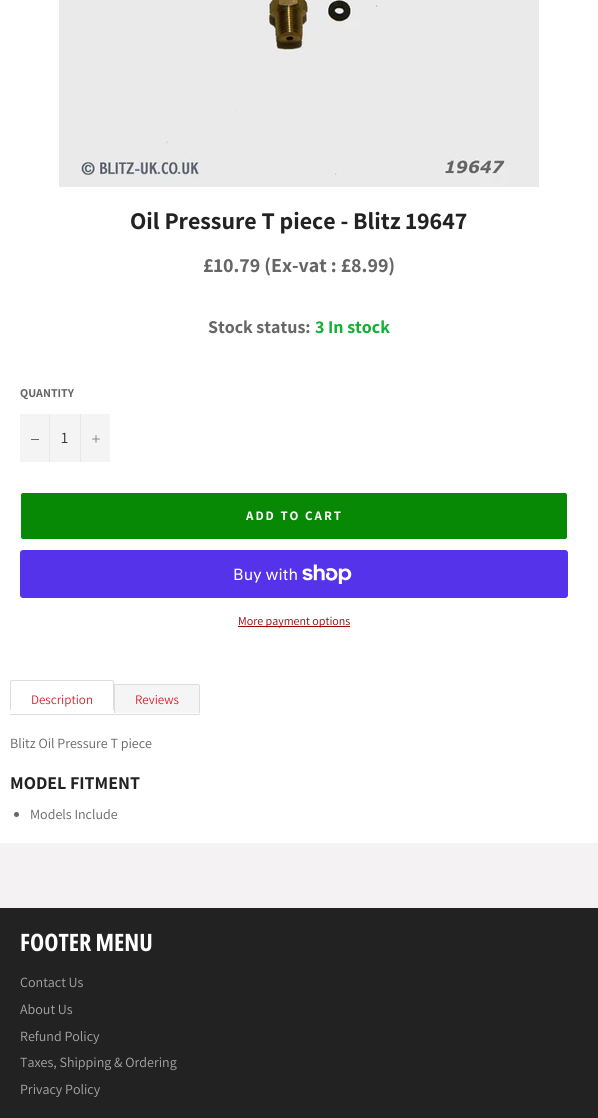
#include <cairo/cairo.h>
#include <math.h>
#include <stddef.h>

typedef struct { double x, y; const char *s; } line_t;
typedef struct { double x, y, w, h; unsigned color; } box_t;
static cairo_t *cr;

static void rgb(unsigned color)
{
	cairo_set_source_rgb(cr, (color >> 16) / 255.0, (color >> 8 & 255) / 255.0, (color & 255) / 255.0);
}

static void tracked(double x, double y, const char *s, double letter, double word)
{
	cairo_move_to(cr, x, y);
	while (*s) {
		char ch[5] = {0};
		int n = 0;
		do ch[n++] = *s++; while ((*s & 0xC0) == 0x80);
		cairo_show_text(cr, ch);
		cairo_rel_move_to(cr, letter + word * (*ch == ' '), 0);
	}
}

static void rrect(double x, double y, double w, double h, double r)
{
	cairo_new_sub_path(cr);
	cairo_arc(cr, x + w - r, y + h - r, r, 0, M_PI / 2);
	cairo_arc(cr, x + r, y + h - r, r, M_PI / 2, M_PI);
	cairo_arc(cr, x + r, y + r, r, M_PI, 1.5 * M_PI);
	cairo_arc(cr, x + w - r, y + r, r, 1.5 * M_PI, 2 * M_PI);
	cairo_close_path(cr);
}

static void image(const char *path, double x, double y, double w, double h)
{
	cairo_surface_t *image = cairo_image_surface_create_from_png(path);
	cairo_save(cr);
	cairo_set_source_surface(cr, image, x, y);
	cairo_rectangle(cr, x, y, w, h);
	cairo_fill(cr);
	cairo_restore(cr);
	cairo_surface_destroy(image);
}

int main(void) {
	cairo_surface_t *surface = cairo_image_surface_create(CAIRO_FORMAT_RGB24, 598, 1118);
	cr = cairo_create(surface);
	cairo_font_options_t *options = cairo_font_options_create();
	cairo_font_options_set_hint_metrics(options, CAIRO_HINT_METRICS_OFF);
	cairo_font_options_set_hint_style(options, CAIRO_HINT_STYLE_NONE);
	cairo_set_font_options(cr, options);
	cairo_set_miter_limit(cr, 4);
	rgb(0xf5f2f4);
	cairo_paint(cr);
	rgb(0xffffff);
	cairo_rectangle(cr, 0, 0, 598, 843);
	cairo_fill(cr);
	image("img/1.png", 59, 0, 480, 187);
	{
		static const box_t items[] = {
			{20, 414, 90, 48, 0xf4f4f4},
			{49, 414, 1, 48, 0xe7e7e7},
			{31, 439, 8, 1, 0x666666},
			{80, 414, 1, 48, 0xe7e7e7},
		};
		for (size_t i = 0; i < sizeof items / sizeof *items; i++) {
			rgb(items[i].color);
			cairo_rectangle(cr, items[i].x, items[i].y, items[i].w, items[i].h);
			cairo_fill(cr);
		}
	}
	image("img/2.png", 92, 435, 8, 8);
	rgb(0x088905);
	rrect(20.5, 492.5, 547, 47, 2.5);
	cairo_fill_preserve(cr);
	rgb(0xffffff);
	cairo_set_line_width(cr, 1);
	cairo_stroke(cr);
	rgb(0x5433eb);
	rrect(20, 550, 548, 48, 3);
	cairo_fill(cr);
	image("img/3.png", 302, 564, 50, 20);
	{
		static const box_t items[] = {
			{238, 626, 112, 1, 0x9f000f},
			{10, 714, 190, 1, 0xdddddd},
			{11, 680, 102, 1, 0xdddddd},
			{113, 681, 1, 29, 0xdddddd},
			{10, 681, 1, 29, 0xdddddd},
		};
		for (size_t i = 0; i < sizeof items / sizeof *items; i++) {
			rgb(items[i].color);
			cairo_rectangle(cr, items[i].x, items[i].y, items[i].w, items[i].h);
			cairo_fill(cr);
		}
	}
	rgb(0xf5f5f5);
	cairo_new_path(cr);
	cairo_move_to(cr, 114, 684);
	cairo_line_to(cr, 198, 684);
	cairo_curve_to(cr, 199, 684, 200, 685, 200, 686);
	cairo_line_to(cr, 200, 713);
	cairo_line_to(cr, 114, 713);
	cairo_close_path(cr);
	cairo_fill(cr);
	{
		static const box_t items[] = {
			{114, 684, 85, 1, 0xdddddd},
			{199, 685, 1, 28, 0xdddddd},
			{114, 684, 1, 29, 0xdddddd},
		};
		for (size_t i = 0; i < sizeof items / sizeof *items; i++) {
			rgb(items[i].color);
			cairo_rectangle(cr, items[i].x, items[i].y, items[i].w, items[i].h);
			cairo_fill(cr);
		}
	}
	rgb(0x666666);
	cairo_arc(cr, 16.5, 814.5, 2.5, 0, 2 * M_PI);
	cairo_fill(cr);
	rgb(0x222222);
	cairo_rectangle(cr, 0, 908, 598, 210);
	cairo_fill(cr);
	cairo_select_font_face(cr, "Assistant", CAIRO_FONT_SLANT_NORMAL, CAIRO_FONT_WEIGHT_BOLD);
	cairo_set_font_size(cr, 24);
	cairo_move_to(cr, 130, 229);
	cairo_show_text(cr, "Oil Pressure T piece - Blitz 19647");
	cairo_set_font_size(cr, 20);
	rgb(0x666666);
	cairo_move_to(cr, 203, 272);
	cairo_show_text(cr, "£10.79 (Ex-vat : £8.99)");
	cairo_set_font_size(cr, 18);
	cairo_move_to(cr, 208, 333);
	cairo_show_text(cr, "Stock status:");
	rgb(0x12b036);
	cairo_move_to(cr, 315, 333);
	cairo_show_text(cr, "3 In stock");
	cairo_set_font_size(cr, 12);
	rgb(0x666666);
	cairo_move_to(cr, 20, 397);
	cairo_show_text(cr, "QUANTITY");
	cairo_select_font_face(cr, "Assistant", CAIRO_FONT_SLANT_NORMAL, CAIRO_FONT_WEIGHT_NORMAL);
	cairo_set_font_size(cr, 16);
	rgb(0x333333);
	cairo_move_to(cr, 61, 443);
	cairo_show_text(cr, "1");
	cairo_select_font_face(cr, "Assistant", CAIRO_FONT_SLANT_NORMAL, CAIRO_FONT_WEIGHT_BOLD);
	cairo_set_font_size(cr, 13);
	rgb(0xffffff);
	tracked(246, 520, "ADD TO CART", 2, 0);
	cairo_select_font_face(cr, "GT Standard", CAIRO_FONT_SLANT_NORMAL, CAIRO_FONT_WEIGHT_NORMAL);
	cairo_set_font_size(cr, 16);
	cairo_move_to(cr, 233, 580);
	cairo_show_text(cr, "Buy with");
	cairo_select_font_face(cr, "Assistant", CAIRO_FONT_SLANT_NORMAL, CAIRO_FONT_WEIGHT_NORMAL);
	cairo_set_font_size(cr, 12);
	rgb(0x9f000f);
	cairo_move_to(cr, 238, 625);
	cairo_show_text(cr, "More payment options");
	cairo_set_font_size(cr, 13);
	rgb(0xd8232f);
	cairo_move_to(cr, 31, 704);
	cairo_show_text(cr, "Description");
	cairo_move_to(cr, 135, 704);
	cairo_show_text(cr, "Reviews");
	cairo_set_font_size(cr, 14);
	rgb(0x666666);
	cairo_move_to(cr, 10, 748);
	cairo_show_text(cr, "Blitz Oil Pressure T piece");
	cairo_select_font_face(cr, "Assistant", CAIRO_FONT_SLANT_NORMAL, CAIRO_FONT_WEIGHT_BOLD);
	cairo_set_font_size(cr, 18);
	rgb(0x222222);
	cairo_move_to(cr, 10, 789);
	cairo_show_text(cr, "MODEL FITMENT");
	cairo_select_font_face(cr, "Assistant", CAIRO_FONT_SLANT_NORMAL, CAIRO_FONT_WEIGHT_NORMAL);
	cairo_set_font_size(cr, 14);
	rgb(0x666666);
	cairo_move_to(cr, 30, 819);
	cairo_show_text(cr, "Models Include");
	cairo_select_font_face(cr, "Open Sans Condensed", CAIRO_FONT_SLANT_NORMAL, CAIRO_FONT_WEIGHT_BOLD);
	cairo_set_font_size(cr, 24);
	rgb(0xffffff);
	cairo_move_to(cr, 20, 951);
	cairo_show_text(cr, "FOOTER MENU");
	cairo_select_font_face(cr, "Assistant", CAIRO_FONT_SLANT_NORMAL, CAIRO_FONT_WEIGHT_NORMAL);
	cairo_set_font_size(cr, 14);
	rgb(0xa7a7a7);
	{
		static const line_t items[] = {
			{20, 987, "Contact Us"},
			{20, 1014, "About Us"},
			{20, 1041, "Refund Policy"},
			{20, 1067, "Taxes, Shipping & Ordering"},
			{20, 1094, "Privacy Policy"},
		};
		for (size_t i = 0; i < sizeof items / sizeof *items; i++) {
			cairo_move_to(cr, items[i].x, items[i].y);
			cairo_show_text(cr, items[i].s);
		}
	}
	cairo_surface_write_to_png(surface, "page.png");
	cairo_font_options_destroy(options);
	cairo_destroy(cr);
	cairo_surface_destroy(surface);
	return 0;
}
